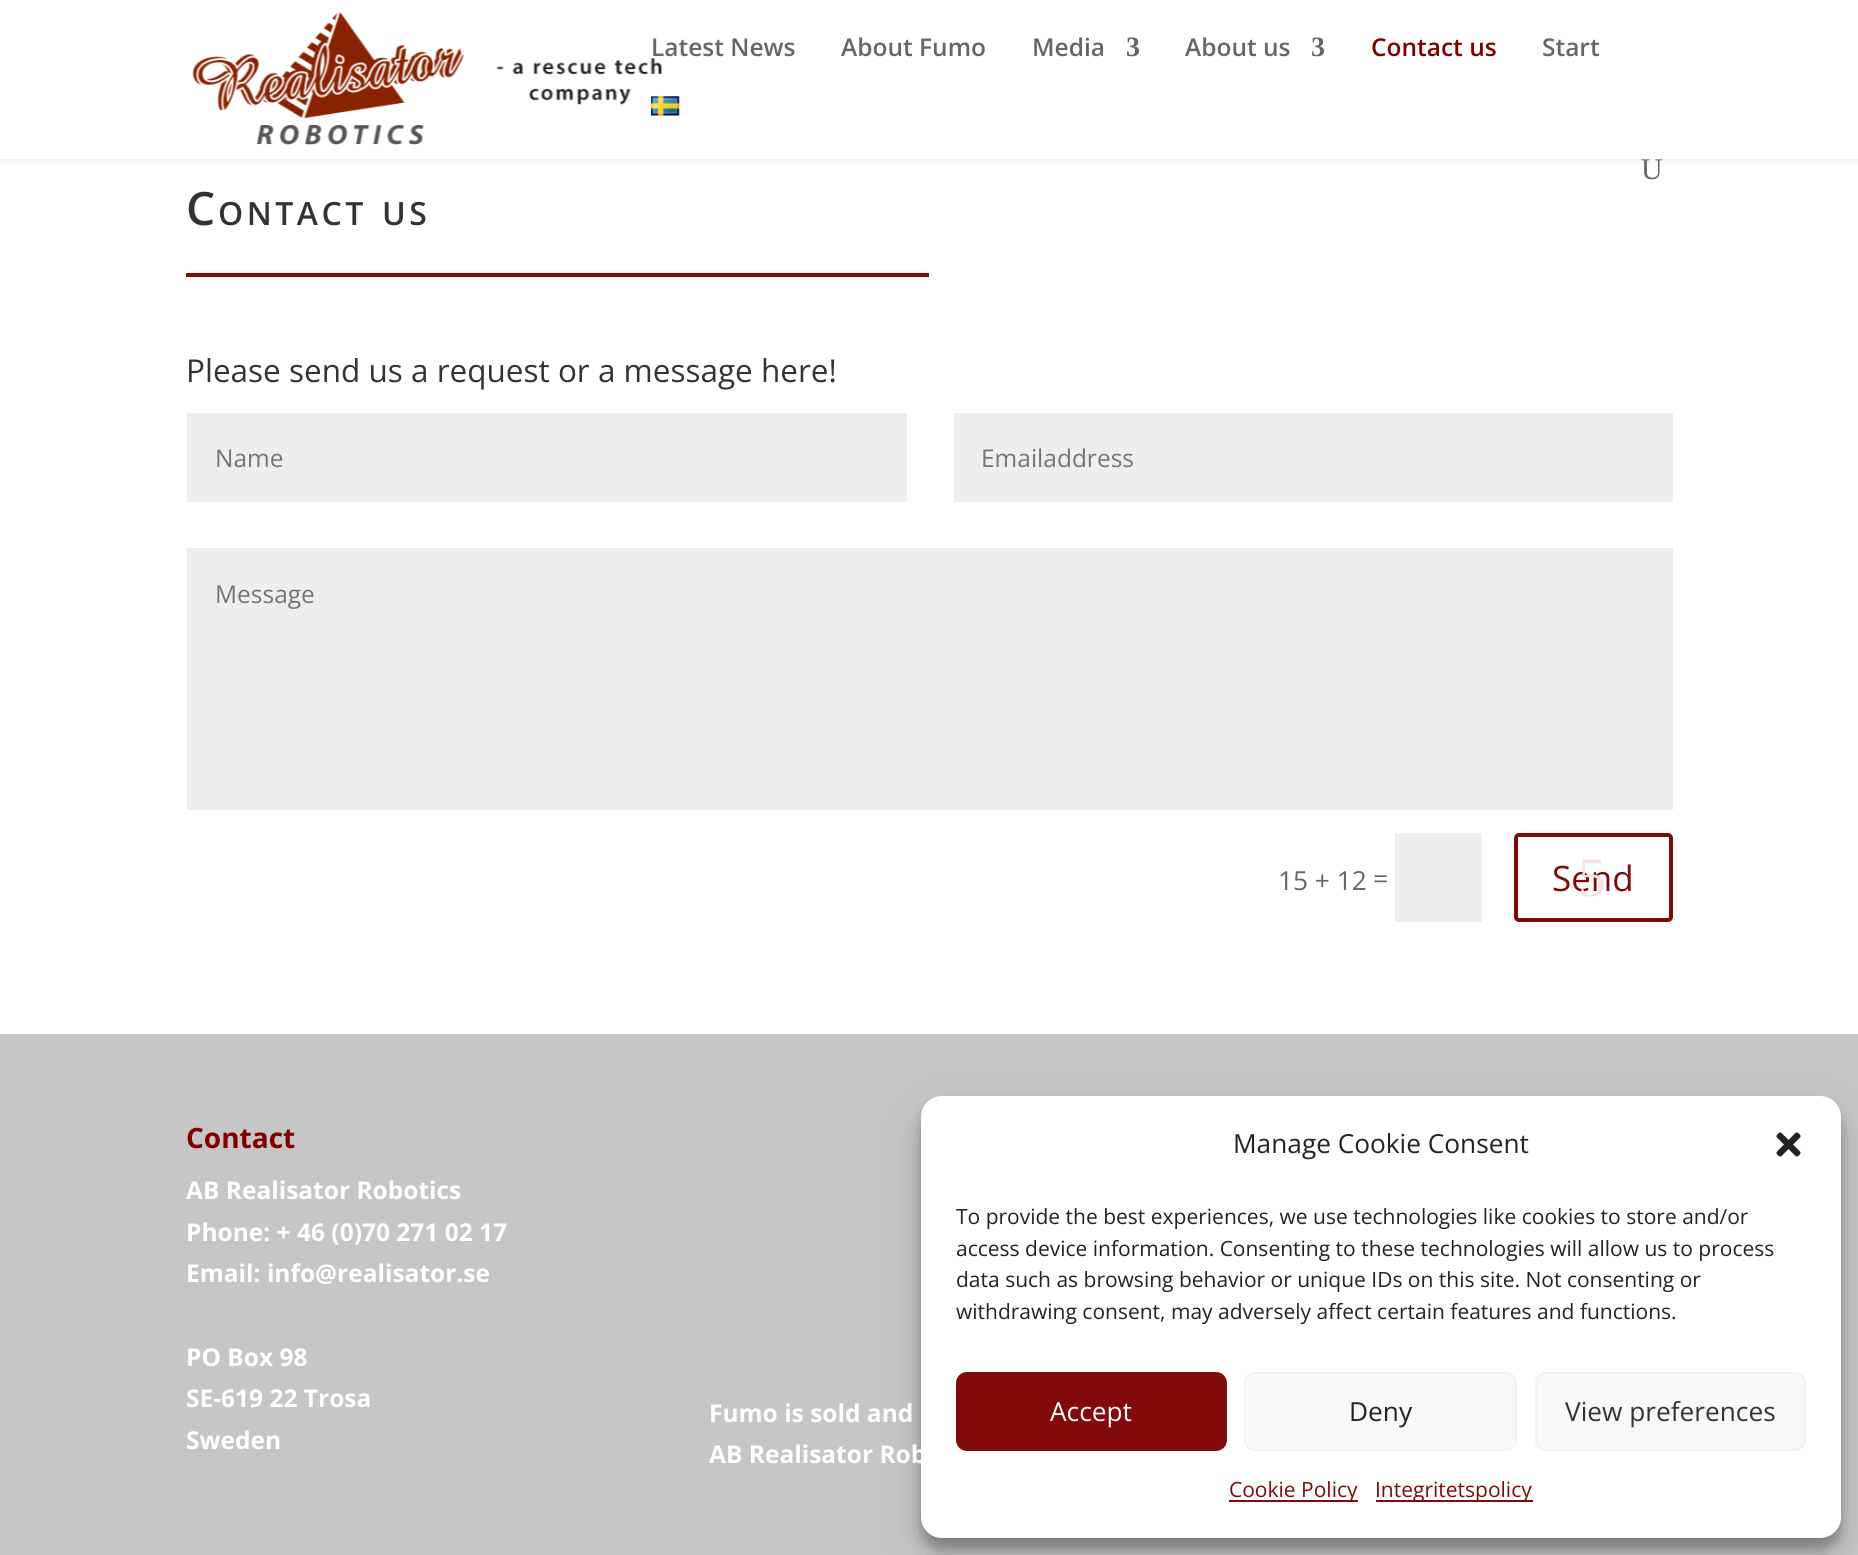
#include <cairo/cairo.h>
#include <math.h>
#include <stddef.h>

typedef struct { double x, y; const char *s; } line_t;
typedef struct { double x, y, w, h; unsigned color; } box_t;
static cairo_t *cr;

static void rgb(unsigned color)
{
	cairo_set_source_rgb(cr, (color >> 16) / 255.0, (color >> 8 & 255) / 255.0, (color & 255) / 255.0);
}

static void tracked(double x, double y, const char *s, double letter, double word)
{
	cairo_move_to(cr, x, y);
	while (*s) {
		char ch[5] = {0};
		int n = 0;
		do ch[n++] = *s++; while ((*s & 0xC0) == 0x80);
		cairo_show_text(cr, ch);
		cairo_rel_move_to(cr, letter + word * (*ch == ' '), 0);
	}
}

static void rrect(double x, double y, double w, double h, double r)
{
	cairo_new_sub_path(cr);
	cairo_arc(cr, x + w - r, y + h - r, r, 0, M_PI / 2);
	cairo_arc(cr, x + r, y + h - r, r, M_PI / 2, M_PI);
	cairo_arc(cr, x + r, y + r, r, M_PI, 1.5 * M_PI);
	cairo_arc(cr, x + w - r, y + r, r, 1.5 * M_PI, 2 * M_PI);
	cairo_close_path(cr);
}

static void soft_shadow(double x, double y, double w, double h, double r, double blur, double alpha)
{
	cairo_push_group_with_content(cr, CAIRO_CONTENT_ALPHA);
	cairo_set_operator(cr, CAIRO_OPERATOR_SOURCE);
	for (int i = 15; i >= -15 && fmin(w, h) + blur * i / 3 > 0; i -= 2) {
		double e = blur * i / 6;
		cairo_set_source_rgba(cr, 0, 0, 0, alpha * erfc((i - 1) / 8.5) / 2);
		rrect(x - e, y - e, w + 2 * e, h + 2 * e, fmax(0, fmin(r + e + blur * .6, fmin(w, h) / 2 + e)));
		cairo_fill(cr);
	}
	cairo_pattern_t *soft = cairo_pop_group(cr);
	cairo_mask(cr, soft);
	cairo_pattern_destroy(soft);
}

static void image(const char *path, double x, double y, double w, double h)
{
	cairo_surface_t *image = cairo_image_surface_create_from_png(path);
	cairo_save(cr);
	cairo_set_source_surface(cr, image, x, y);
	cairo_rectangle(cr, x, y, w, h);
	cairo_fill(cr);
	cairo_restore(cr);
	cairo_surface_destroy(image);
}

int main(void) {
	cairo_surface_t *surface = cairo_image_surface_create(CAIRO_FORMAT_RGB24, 1858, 1555);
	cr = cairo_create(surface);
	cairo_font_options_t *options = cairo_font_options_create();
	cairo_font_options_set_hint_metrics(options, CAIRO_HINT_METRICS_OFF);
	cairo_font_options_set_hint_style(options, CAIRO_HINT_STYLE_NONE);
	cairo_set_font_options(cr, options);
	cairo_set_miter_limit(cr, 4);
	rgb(0xffffff);
	cairo_paint(cr);
	cairo_save(cr);
	cairo_rectangle(cr, 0, 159, 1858, 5);
	cairo_clip(cr);
	rgb(0x000000);
	soft_shadow(0, 0, 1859, 159, 0, 6, 0.1);
	cairo_restore(cr);
	image("img/1.png", 192, 12, 470, 133);
	image("img/2.png", 651, 96, 29, 20);
	{
		static const box_t items[] = {
			{186, 273, 743, 4, 0x840e0e},
			{187, 413, 720, 89, 0xeeeeee},
			{954, 413, 719, 89, 0xeeeeee},
			{187, 548, 1486, 262, 0xeeeeee},
			{1395, 833, 87, 89, 0xeeeeee},
		};
		for (size_t i = 0; i < sizeof items / sizeof *items; i++) {
			rgb(items[i].color);
			cairo_rectangle(cr, items[i].x, items[i].y, items[i].w, items[i].h);
			cairo_fill(cr);
		}
	}
	rrect(1516, 835, 155, 85, 3);
	rgb(0x7f0a0a);
	cairo_set_line_width(cr, 4);
	cairo_stroke(cr);
	rgb(0xc6c6c6);
	cairo_rectangle(cr, 0, 1034, 1858, 521);
	cairo_fill(cr);
	rgb(0x000000);
	soft_shadow(921, 1106, 920, 443, 21, 5, 0.23);
	soft_shadow(921, 1113, 920, 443, 21, 17.5, 0.19);
	rgb(0xffffff);
	rrect(921, 1096, 920, 442, 21);
	cairo_fill(cr);
	image("img/3.png", 1776, 1132, 25, 25);
	rgb(0x820a0a);
	rrect(957, 1373, 269, 77, 10);
	cairo_fill_preserve(cr);
	cairo_set_line_width(cr, 2);
	cairo_stroke(cr);
	rgb(0xf9f9f9);
	rrect(1245, 1373, 271, 77, 10);
	cairo_fill_preserve(cr);
	rgb(0xf2f2f2);
	cairo_stroke(cr);
	rgb(0xf9f9f9);
	rrect(1536, 1373, 269, 77, 10);
	cairo_fill_preserve(cr);
	rgb(0xf2f2f2);
	cairo_stroke(cr);
	rgb(0x840a0a);
	cairo_rectangle(cr, 1229, 1500, 129, 2);
	cairo_fill(cr);
	cairo_rectangle(cr, 1376, 1500, 157, 2);
	cairo_fill(cr);
	cairo_select_font_face(cr, "Open Sans SemiBold", CAIRO_FONT_SLANT_NORMAL, CAIRO_FONT_WEIGHT_NORMAL);
	cairo_set_font_size(cr, 24.5);
	rgb(0x666666);
	{
		static const line_t items[] = {
			{651, 56, "Latest News"},
			{841, 56, "About Fumo"},
			{1032, 56, "Media"},
		};
		for (size_t i = 0; i < sizeof items / sizeof *items; i++) {
			cairo_move_to(cr, items[i].x, items[i].y);
			cairo_show_text(cr, items[i].s);
		}
	}
	cairo_select_font_face(cr, "Liberation Serif", CAIRO_FONT_SLANT_NORMAL, CAIRO_FONT_WEIGHT_BOLD);
	cairo_set_font_size(cr, 28);
	cairo_move_to(cr, 1126, 56);
	cairo_show_text(cr, "3");
	cairo_select_font_face(cr, "Open Sans SemiBold", CAIRO_FONT_SLANT_NORMAL, CAIRO_FONT_WEIGHT_NORMAL);
	cairo_set_font_size(cr, 24.5);
	cairo_move_to(cr, 1185, 56);
	cairo_show_text(cr, "About us");
	cairo_select_font_face(cr, "Liberation Serif", CAIRO_FONT_SLANT_NORMAL, CAIRO_FONT_WEIGHT_BOLD);
	cairo_set_font_size(cr, 28);
	cairo_move_to(cr, 1311, 56);
	cairo_show_text(cr, "3");
	cairo_select_font_face(cr, "Open Sans SemiBold", CAIRO_FONT_SLANT_NORMAL, CAIRO_FONT_WEIGHT_NORMAL);
	cairo_set_font_size(cr, 24.5);
	rgb(0x800000);
	cairo_move_to(cr, 1371, 56);
	cairo_show_text(cr, "Contact us");
	rgb(0x666666);
	cairo_move_to(cr, 1542, 56);
	cairo_show_text(cr, "Start");
	cairo_select_font_face(cr, "Liberation Serif", CAIRO_FONT_SLANT_NORMAL, CAIRO_FONT_WEIGHT_NORMAL);
	cairo_set_font_size(cr, 30);
	cairo_move_to(cr, 1641, 179);
	cairo_show_text(cr, "U");
	cairo_select_font_face(cr, "Open Sans SemiBold", CAIRO_FONT_SLANT_NORMAL, CAIRO_FONT_WEIGHT_NORMAL);
	cairo_set_font_size(cr, 46);
	rgb(0x333333);
	tracked(186, 225, "C", 3.5, 0);
	cairo_set_font_size(cr, 32);
	tracked(218, 225, "ONTACT", 3.5, 0);
	tracked(382, 225, "US", 3.5, 0);
	cairo_select_font_face(cr, "Open Sans", CAIRO_FONT_SLANT_NORMAL, CAIRO_FONT_WEIGHT_NORMAL);
	cairo_set_font_size(cr, 31.5);
	cairo_move_to(cr, 186, 382);
	cairo_show_text(cr, "Please send us a request or a message here!");
	cairo_set_font_size(cr, 24.5);
	rgb(0x757575);
	{
		static const line_t items[] = {
			{215, 467, "Name"},
			{981, 467, "Emailaddress"},
			{215, 603, "Message"},
		};
		for (size_t i = 0; i < sizeof items / sizeof *items; i++) {
			cairo_move_to(cr, items[i].x, items[i].y);
			cairo_show_text(cr, items[i].s);
		}
	}
	cairo_set_font_size(cr, 26.25);
	rgb(0x666666);
	cairo_move_to(cr, 1278, 890);
	cairo_show_text(cr, "15 + 12");
	cairo_move_to(cr, 1373, 888);
	cairo_show_text(cr, "=");
	cairo_set_font_size(cr, 35);
	rgb(0x7f0a0a);
	cairo_move_to(cr, 1552, 891);
	cairo_show_text(cr, "Send");
	cairo_select_font_face(cr, "Liberation Serif", CAIRO_FONT_SLANT_NORMAL, CAIRO_FONT_WEIGHT_NORMAL);
	cairo_set_font_size(cr, 56);
	rgb(0xf1e4e4);
	cairo_move_to(cr, 1578, 896);
	cairo_show_text(cr, "5");
	cairo_select_font_face(cr, "Open Sans", CAIRO_FONT_SLANT_NORMAL, CAIRO_FONT_WEIGHT_BOLD);
	cairo_set_font_size(cr, 28);
	rgb(0x800000);
	cairo_move_to(cr, 186, 1148);
	cairo_show_text(cr, "Contact");
	cairo_set_font_size(cr, 24.5);
	rgb(0xffffff);
	{
		static const line_t items[] = {
			{186, 1199, "AB Realisator Robotics"},
			{186, 1241, "Phone: + 46 (0)70 271 02 17"},
			{186, 1282, "Email: info@realisator.se"},
			{186, 1366, "PO Box 98"},
			{186, 1407, "SE-619 22 Trosa"},
			{186, 1449, "Sweden"},
			{709, 1422, "Fumo is sold and"},
			{709, 1463, "AB Realisator Rob"},
		};
		for (size_t i = 0; i < sizeof items / sizeof *items; i++) {
			cairo_move_to(cr, items[i].x, items[i].y);
			cairo_show_text(cr, items[i].s);
		}
	}
	cairo_select_font_face(cr, "Open Sans", CAIRO_FONT_SLANT_NORMAL, CAIRO_FONT_WEIGHT_NORMAL);
	cairo_set_font_size(cr, 26.25);
	rgb(0x222222);
	cairo_move_to(cr, 1233, 1153);
	cairo_show_text(cr, "Manage Cookie Consent");
	cairo_set_font_size(cr, 21);
	{
		static const line_t items[] = {
			{956, 1224, "To provide the best experiences, we use technologies like cookies to store and/or"},
			{956, 1256, "access device information. Consenting to these technologies will allow us to process"},
			{956, 1287, "data such as browsing behavior or unique IDs on this site. Not consenting or"},
			{956, 1319, "withdrawing consent, may adversely affect certain features and functions."},
		};
		for (size_t i = 0; i < sizeof items / sizeof *items; i++) {
			cairo_move_to(cr, items[i].x, items[i].y);
			cairo_show_text(cr, items[i].s);
		}
	}
	cairo_set_font_size(cr, 26.25);
	rgb(0xffffff);
	cairo_move_to(cr, 1050, 1421);
	cairo_show_text(cr, "Accept");
	rgb(0x222222);
	cairo_move_to(cr, 1349, 1421);
	cairo_show_text(cr, "Deny");
	rgb(0x333333);
	cairo_move_to(cr, 1565, 1421);
	cairo_show_text(cr, "View preferences");
	cairo_set_font_size(cr, 21);
	rgb(0x7f0a0a);
	cairo_move_to(cr, 1229, 1497);
	cairo_show_text(cr, "Cookie Policy");
	cairo_move_to(cr, 1375, 1497);
	cairo_show_text(cr, "Integritetspolicy");
	cairo_surface_write_to_png(surface, "page.png");
	cairo_font_options_destroy(options);
	cairo_destroy(cr);
	cairo_surface_destroy(surface);
	return 0;
}
